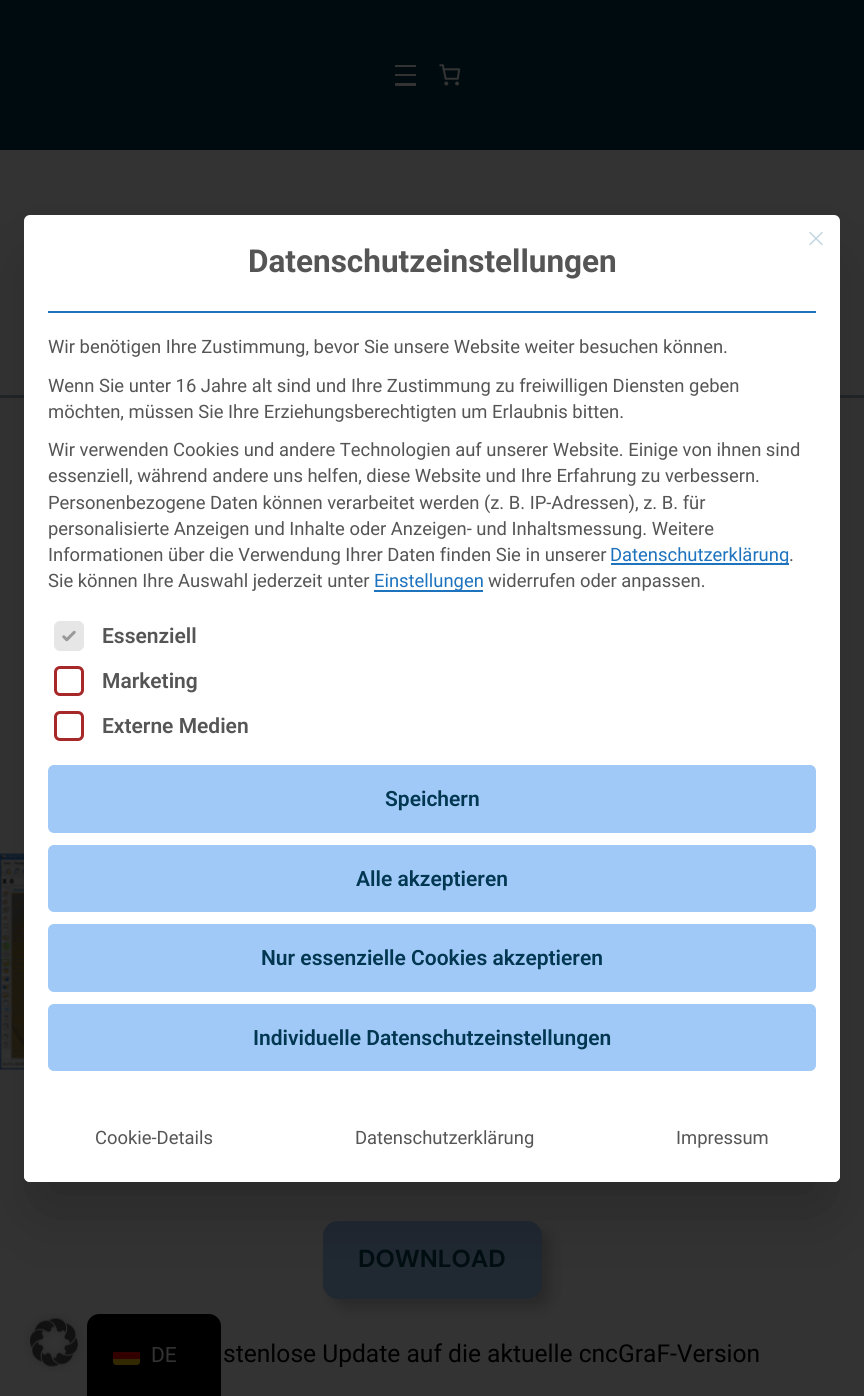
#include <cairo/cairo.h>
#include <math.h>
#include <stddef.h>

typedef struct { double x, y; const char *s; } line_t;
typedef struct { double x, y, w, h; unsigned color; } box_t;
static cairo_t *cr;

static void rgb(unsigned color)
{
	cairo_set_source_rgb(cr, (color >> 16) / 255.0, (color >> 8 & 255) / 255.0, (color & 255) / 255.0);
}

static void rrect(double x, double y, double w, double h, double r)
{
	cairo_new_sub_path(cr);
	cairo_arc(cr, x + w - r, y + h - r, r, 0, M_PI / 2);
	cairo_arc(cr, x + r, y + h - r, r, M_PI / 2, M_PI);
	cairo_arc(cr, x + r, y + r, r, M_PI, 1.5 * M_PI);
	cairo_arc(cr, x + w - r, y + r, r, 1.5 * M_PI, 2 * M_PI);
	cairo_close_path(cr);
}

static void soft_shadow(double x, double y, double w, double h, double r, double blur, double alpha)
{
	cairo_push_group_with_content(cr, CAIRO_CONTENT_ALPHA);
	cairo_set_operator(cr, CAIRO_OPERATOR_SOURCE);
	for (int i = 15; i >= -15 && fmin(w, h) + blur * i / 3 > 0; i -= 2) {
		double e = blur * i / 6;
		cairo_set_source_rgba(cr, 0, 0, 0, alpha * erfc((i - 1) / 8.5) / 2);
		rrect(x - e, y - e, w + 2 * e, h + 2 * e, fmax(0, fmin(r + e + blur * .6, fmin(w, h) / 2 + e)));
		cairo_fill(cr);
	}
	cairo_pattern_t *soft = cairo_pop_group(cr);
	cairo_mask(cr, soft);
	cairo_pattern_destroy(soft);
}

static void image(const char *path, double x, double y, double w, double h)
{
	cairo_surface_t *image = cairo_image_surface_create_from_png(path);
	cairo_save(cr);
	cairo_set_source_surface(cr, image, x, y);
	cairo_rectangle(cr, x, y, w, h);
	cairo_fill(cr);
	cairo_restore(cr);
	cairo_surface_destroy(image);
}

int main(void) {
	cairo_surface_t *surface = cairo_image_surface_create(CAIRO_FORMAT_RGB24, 864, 1396);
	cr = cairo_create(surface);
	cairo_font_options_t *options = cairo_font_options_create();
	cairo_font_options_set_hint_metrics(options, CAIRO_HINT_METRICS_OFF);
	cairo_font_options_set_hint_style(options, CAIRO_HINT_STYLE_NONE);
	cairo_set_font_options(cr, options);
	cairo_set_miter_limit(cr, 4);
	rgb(0x333333);
	cairo_paint(cr);
	image("img/2.png", 24, 1313, 60, 59);
	rgb(0x000000);
	cairo_new_path(cr);
	cairo_move_to(cr, 99, 1314);
	cairo_line_to(cr, 209, 1314);
	cairo_curve_to(cr, 215.5, 1314, 221, 1319.5, 221, 1326);
	cairo_line_to(cr, 221, 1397);
	cairo_line_to(cr, 87, 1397);
	cairo_line_to(cr, 87, 1326);
	cairo_curve_to(cr, 87, 1319.5, 92.5, 1314, 99, 1314);
	cairo_close_path(cr);
	cairo_fill(cr);
	rgb(0x222527);
	cairo_rectangle(cr, 0, 395, 864, 3);
	cairo_fill(cr);
	image("img/4.png", 0, 853, 24, 217);
	rgb(0x000000);
	soft_shadow(332, 1230, 219, 78, 15, 7, 0.2);
	rgb(0x202832);
	rrect(323, 1221, 219, 78, 15);
	cairo_fill(cr);
	rgb(0x000000);
	soft_shadow(42, 270, 780, 932, 0, 37.5, 0.25);
	rgb(0xffffff);
	rrect(24, 215, 816, 967, 6);
	cairo_fill(cr);
	cairo_new_path(cr);
	cairo_move_to(cr, 810, 244.5);
	cairo_line_to(cr, 822, 232.5);
	cairo_move_to(cr, 810, 232.5);
	cairo_line_to(cr, 822, 244.5);
	rgb(0xc5d6e2);
	cairo_set_line_width(cr, 1.5);
	cairo_set_line_cap(cr, CAIRO_LINE_CAP_ROUND);
	cairo_set_line_join(cr, CAIRO_LINE_JOIN_ROUND);
	cairo_stroke(cr);
	{
		static const box_t items[] = {
			{48, 311, 768, 2, 0x1e73be},
			{611, 563, 178, 2, 0x1e73be},
			{374, 590, 109, 2, 0x1e73be},
		};
		for (size_t i = 0; i < sizeof items / sizeof *items; i++) {
			rgb(items[i].color);
			cairo_rectangle(cr, items[i].x, items[i].y, items[i].w, items[i].h);
			cairo_fill(cr);
		}
	}
	rgb(0xe6e6e6);
	rrect(55.5, 622.5, 27, 27, 4.5);
	cairo_fill_preserve(cr);
	cairo_set_line_width(cr, 3);
	cairo_set_line_cap(cr, CAIRO_LINE_CAP_BUTT);
	cairo_set_line_join(cr, CAIRO_LINE_JOIN_MITER);
	cairo_stroke(cr);
	image("img/1.png", 62, 630, 14, 12);
	rrect(55.5, 667.5, 27, 27, 4.5);
	rgb(0xa72828);
	cairo_stroke(cr);
	rrect(55.5, 712.5, 27, 27, 4.5);
	cairo_stroke(cr);
	rgb(0xa0c9f8);
	rrect(48, 765, 768, 68, 6);
	cairo_fill(cr);
	rrect(48, 845, 768, 67, 6);
	cairo_fill(cr);
	rrect(48, 924, 768, 68, 6);
	cairo_fill(cr);
	rrect(48, 1004, 768, 67, 6);
	cairo_fill(cr);
	rgb(0xffffff);
	cairo_new_path(cr);
	cairo_move_to(cr, 24, 1095);
	cairo_line_to(cr, 840, 1095);
	cairo_line_to(cr, 840, 1176);
	cairo_curve_to(cr, 840, 1179.5, 837.5, 1182, 834, 1182);
	cairo_line_to(cr, 30, 1182);
	cairo_curve_to(cr, 26.5, 1182, 24, 1179.5, 24, 1176);
	cairo_close_path(cr);
	cairo_fill(cr);
	rgb(0x332900);
	cairo_new_path(cr);
	cairo_move_to(cr, 113, 1359);
	cairo_line_to(cr, 140, 1359);
	cairo_line_to(cr, 140, 1362);
	cairo_curve_to(cr, 140, 1363.5, 138.5, 1365, 137, 1365);
	cairo_line_to(cr, 116, 1365);
	cairo_curve_to(cr, 114.5, 1365, 113, 1363.5, 113, 1362);
	cairo_close_path(cr);
	cairo_fill(cr);
	{
		static const box_t items[] = {
			{113, 1352, 27, 7, 0x330000},
			{0, 0, 864, 150, 0x000b10},
			{395, 65, 21, 2, 0x333333},
			{395, 74, 21, 2, 0x333333},
			{395, 83, 21, 3, 0x333333},
		};
		for (size_t i = 0; i < sizeof items / sizeof *items; i++) {
			rgb(items[i].color);
			cairo_rectangle(cr, items[i].x, items[i].y, items[i].w, items[i].h);
			cairo_fill(cr);
		}
	}
	image("img/3.png", 439, 64, 22, 22);
	cairo_select_font_face(cr, "Roboto", CAIRO_FONT_SLANT_NORMAL, CAIRO_FONT_WEIGHT_BOLD);
	cairo_set_font_size(cr, 31.5);
	rgb(0x555555);
	cairo_move_to(cr, 248, 272);
	cairo_show_text(cr, "Datenschutzeinstellungen");
	cairo_select_font_face(cr, "Roboto", CAIRO_FONT_SLANT_NORMAL, CAIRO_FONT_WEIGHT_NORMAL);
	cairo_set_font_size(cr, 18.4);
	{
		static const line_t items[] = {
			{48, 353, "Wir benötigen Ihre Zustimmung, bevor Sie unsere Website weiter besuchen können."},
			{48, 392, "Wenn Sie unter 16 Jahre alt sind und Ihre Zustimmung zu freiwilligen Diensten geben"},
			{48, 418, "möchten, müssen Sie Ihre Erziehungsberechtigten um Erlaubnis bitten."},
			{48, 456, "Wir verwenden Cookies und andere Technologien auf unserer Website. Einige von ihnen sind"},
			{48, 482, "essenziell, während andere uns helfen, diese Website und Ihre Erfahrung zu verbessern."},
			{48, 509, "Personenbezogene Daten können verarbeitet werden (z. B. IP-Adressen), z. B. für"},
			{48, 535, "personalisierte Anzeigen und Inhalte oder Anzeigen- und Inhaltsmessung. Weitere"},
			{48, 561, "Informationen über die Verwendung Ihrer Daten finden Sie in unserer"},
		};
		for (size_t i = 0; i < sizeof items / sizeof *items; i++) {
			cairo_move_to(cr, items[i].x, items[i].y);
			cairo_show_text(cr, items[i].s);
		}
	}
	rgb(0x1e73be);
	cairo_move_to(cr, 610, 561);
	cairo_show_text(cr, "Datenschutzerklärung");
	rgb(0x555555);
	cairo_move_to(cr, 789, 561);
	cairo_show_text(cr, ".");
	cairo_move_to(cr, 48, 587);
	cairo_show_text(cr, "Sie können Ihre Auswahl jederzeit unter");
	rgb(0x1e73be);
	cairo_move_to(cr, 374, 587);
	cairo_show_text(cr, "Einstellungen");
	rgb(0x555555);
	cairo_move_to(cr, 488, 587);
	cairo_show_text(cr, "widerrufen oder anpassen.");
	cairo_select_font_face(cr, "Roboto SemiBold", CAIRO_FONT_SLANT_NORMAL, CAIRO_FONT_WEIGHT_NORMAL);
	cairo_set_font_size(cr, 21);
	{
		static const line_t items[] = {
			{102, 643, "Essenziell"},
			{102, 688, "Marketing"},
			{102, 733, "Externe Medien"},
		};
		for (size_t i = 0; i < sizeof items / sizeof *items; i++) {
			cairo_move_to(cr, items[i].x, items[i].y);
			cairo_show_text(cr, items[i].s);
		}
	}
	rgb(0x023751);
	{
		static const line_t items[] = {
			{385, 806, "Speichern"},
			{356, 886, "Alle akzeptieren"},
			{261, 965, "Nur essenzielle Cookies akzeptieren"},
			{253, 1045, "Individuelle Datenschutzeinstellungen"},
		};
		for (size_t i = 0; i < sizeof items / sizeof *items; i++) {
			cairo_move_to(cr, items[i].x, items[i].y);
			cairo_show_text(cr, items[i].s);
		}
	}
	cairo_select_font_face(cr, "Roboto", CAIRO_FONT_SLANT_NORMAL, CAIRO_FONT_WEIGHT_NORMAL);
	cairo_set_font_size(cr, 18.4);
	rgb(0x555555);
	{
		static const line_t items[] = {
			{95, 1144, "Cookie-Details"},
			{355, 1144, "Datenschutzerklärung"},
			{676, 1144, "Impressum"},
		};
		for (size_t i = 0; i < sizeof items / sizeof *items; i++) {
			cairo_move_to(cr, items[i].x, items[i].y);
			cairo_show_text(cr, items[i].s);
		}
	}
	cairo_set_font_size(cr, 21);
	rgb(0x333333);
	cairo_move_to(cr, 151, 1362);
	cairo_show_text(cr, "DE");
	cairo_select_font_face(cr, "DM Sans", CAIRO_FONT_SLANT_NORMAL, CAIRO_FONT_WEIGHT_BOLD);
	cairo_set_font_size(cr, 24.6);
	rgb(0x000e12);
	cairo_move_to(cr, 358, 1267);
	cairo_show_text(cr, "DOWNLOAD");
	cairo_select_font_face(cr, "Roboto", CAIRO_FONT_SLANT_NORMAL, CAIRO_FONT_WEIGHT_NORMAL);
	rgb(0x000000);
	cairo_move_to(cr, 223, 1362);
	cairo_show_text(cr, "stenlose Update auf die aktuelle cncGraF-Version");
	cairo_surface_write_to_png(surface, "page.png");
	cairo_font_options_destroy(options);
	cairo_destroy(cr);
	cairo_surface_destroy(surface);
	return 0;
}
